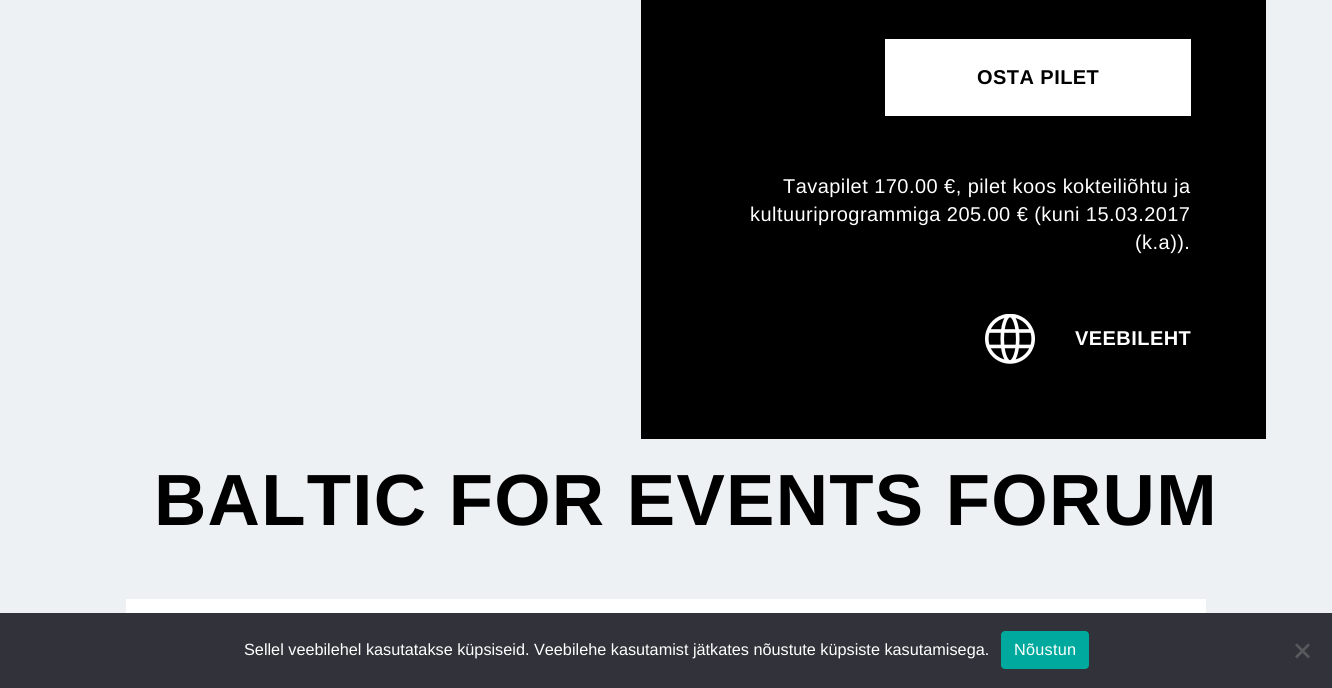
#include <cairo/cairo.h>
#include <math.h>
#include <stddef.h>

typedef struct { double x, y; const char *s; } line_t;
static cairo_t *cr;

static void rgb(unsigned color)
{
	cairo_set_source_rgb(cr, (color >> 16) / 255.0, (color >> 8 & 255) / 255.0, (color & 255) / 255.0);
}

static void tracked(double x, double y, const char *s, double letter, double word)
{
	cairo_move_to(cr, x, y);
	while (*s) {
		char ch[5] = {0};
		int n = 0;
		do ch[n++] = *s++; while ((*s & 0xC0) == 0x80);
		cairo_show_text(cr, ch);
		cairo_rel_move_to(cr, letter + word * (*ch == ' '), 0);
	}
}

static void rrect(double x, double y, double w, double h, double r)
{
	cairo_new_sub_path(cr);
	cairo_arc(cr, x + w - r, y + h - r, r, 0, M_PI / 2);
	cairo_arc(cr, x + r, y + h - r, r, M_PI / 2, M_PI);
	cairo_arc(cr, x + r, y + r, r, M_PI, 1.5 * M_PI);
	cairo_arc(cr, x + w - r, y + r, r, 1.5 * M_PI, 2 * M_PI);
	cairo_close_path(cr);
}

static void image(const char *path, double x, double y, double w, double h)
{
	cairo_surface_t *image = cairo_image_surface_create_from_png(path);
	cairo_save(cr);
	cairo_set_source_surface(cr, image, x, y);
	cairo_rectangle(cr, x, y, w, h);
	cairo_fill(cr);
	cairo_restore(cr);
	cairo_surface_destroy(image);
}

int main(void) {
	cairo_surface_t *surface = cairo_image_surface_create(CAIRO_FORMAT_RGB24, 1332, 688);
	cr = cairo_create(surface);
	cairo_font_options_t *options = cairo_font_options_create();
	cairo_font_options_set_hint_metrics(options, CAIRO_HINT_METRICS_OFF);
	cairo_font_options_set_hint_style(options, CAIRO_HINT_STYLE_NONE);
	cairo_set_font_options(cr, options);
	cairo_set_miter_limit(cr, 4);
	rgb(0xedf1f4);
	cairo_paint(cr);
	rgb(0x000000);
	cairo_rectangle(cr, 641, 0, 625, 439);
	cairo_fill(cr);
	rgb(0xffffff);
	cairo_rectangle(cr, 885, 39, 306, 77);
	cairo_fill(cr);
	image("img/1.png", 985, 314, 50, 50);
	cairo_rectangle(cr, 126, 599, 1080, 14);
	cairo_fill(cr);
	rgb(0x32323a);
	cairo_rectangle(cr, 0, 613, 1332, 75);
	cairo_fill(cr);
	rgb(0x00a99d);
	rrect(1001, 631, 88, 38, 4);
	cairo_fill(cr);
	rgb(0x59595d);
	cairo_new_path(cr);
	cairo_move_to(cr, 1308, 643.5);
	cairo_line_to(cr, 1310, 645);
	cairo_line_to(cr, 1297, 658.5);
	cairo_line_to(cr, 1295, 656.5);
	cairo_close_path(cr);
	cairo_fill(cr);
	cairo_new_path(cr);
	cairo_move_to(cr, 1295, 645);
	cairo_line_to(cr, 1297, 643.5);
	cairo_line_to(cr, 1310, 656.5);
	cairo_line_to(cr, 1308, 658.5);
	cairo_close_path(cr);
	cairo_fill(cr);
	cairo_select_font_face(cr, "Liberation Sans", CAIRO_FONT_SLANT_NORMAL, CAIRO_FONT_WEIGHT_BOLD);
	cairo_set_font_size(cr, 20);
	rgb(0x000000);
	tracked(977, 84, "OSTA PILET", 0.45, 0);
	cairo_select_font_face(cr, "Liberation Sans", CAIRO_FONT_SLANT_NORMAL, CAIRO_FONT_WEIGHT_NORMAL);
	rgb(0xffffff);
	{
		static const line_t items[] = {
			{783, 193, "Tavapilet 170.00 €, pilet koos kokteiliõhtu ja"},
			{750, 221, "kultuuriprogrammiga 205.00 € (kuni 15.03.2017"},
			{1135, 249, "(k.a))."},
		};
		for (size_t i = 0; i < sizeof items / sizeof *items; i++) {
			tracked(items[i].x, items[i].y, items[i].s, 0.45, 0);
		}
	}
	cairo_select_font_face(cr, "Liberation Sans", CAIRO_FONT_SLANT_NORMAL, CAIRO_FONT_WEIGHT_BOLD);
	tracked(1075, 345, "VEEBILEHT", 0.45, 0);
	cairo_set_font_size(cr, 72.5);
	rgb(0x000000);
	tracked(154, 525, "BALTIC FOR EVENTS FORUM", 1.25, 0);
	cairo_select_font_face(cr, "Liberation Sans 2", CAIRO_FONT_SLANT_NORMAL, CAIRO_FONT_WEIGHT_NORMAL);
	cairo_set_font_size(cr, 16.25);
	rgb(0xffffff);
	cairo_move_to(cr, 244, 655);
	cairo_show_text(cr, "Sellel veebilehel kasutatakse küpsiseid. Veebilehe kasutamist jätkates nõustute küpsiste kasutamisega.");
	tracked(1014, 655, "Nõustun", 0.25, 0);
	cairo_surface_write_to_png(surface, "page.png");
	cairo_font_options_destroy(options);
	cairo_destroy(cr);
	cairo_surface_destroy(surface);
	return 0;
}
